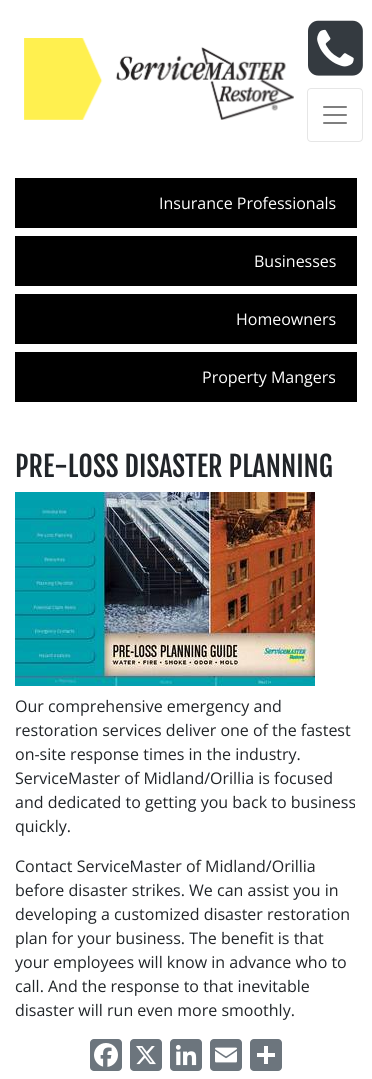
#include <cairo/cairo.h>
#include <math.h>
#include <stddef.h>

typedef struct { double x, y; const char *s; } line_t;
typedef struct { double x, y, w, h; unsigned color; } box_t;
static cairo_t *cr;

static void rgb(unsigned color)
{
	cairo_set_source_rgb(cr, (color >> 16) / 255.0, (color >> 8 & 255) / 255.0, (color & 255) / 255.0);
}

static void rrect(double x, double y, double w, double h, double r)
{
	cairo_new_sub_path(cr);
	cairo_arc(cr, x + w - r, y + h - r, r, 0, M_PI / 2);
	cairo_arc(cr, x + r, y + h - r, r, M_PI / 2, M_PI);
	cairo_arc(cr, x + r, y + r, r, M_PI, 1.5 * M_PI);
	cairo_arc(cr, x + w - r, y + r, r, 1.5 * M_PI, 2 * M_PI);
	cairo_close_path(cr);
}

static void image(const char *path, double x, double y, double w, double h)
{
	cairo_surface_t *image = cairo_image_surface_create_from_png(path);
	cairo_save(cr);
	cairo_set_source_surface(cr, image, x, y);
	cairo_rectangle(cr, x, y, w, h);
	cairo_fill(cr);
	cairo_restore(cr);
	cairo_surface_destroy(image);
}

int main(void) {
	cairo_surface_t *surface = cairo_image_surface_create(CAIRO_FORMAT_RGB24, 372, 1079);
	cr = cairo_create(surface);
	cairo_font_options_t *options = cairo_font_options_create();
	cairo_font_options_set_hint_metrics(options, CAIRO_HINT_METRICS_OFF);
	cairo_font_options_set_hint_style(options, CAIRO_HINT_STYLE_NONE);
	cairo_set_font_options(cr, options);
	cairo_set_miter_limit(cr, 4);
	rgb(0xffffff);
	cairo_paint(cr);
	image("img/1.png", 24, 38, 270, 82);
	image("img/2.png", 308, 20, 55, 56);
	rrect(307.5, 88.5, 55, 53, 3.5);
	rgb(0xe6e6e6);
	cairo_set_line_width(cr, 1);
	cairo_stroke(cr);
	image("img/3.png", 323, 106, 24, 18);
	{
		static const box_t items[] = {
			{15, 178, 342, 50, 0x000000},
			{15, 236, 342, 50, 0x000000},
			{15, 294, 342, 50, 0x000000},
			{15, 352, 342, 50, 0x000000},
		};
		for (size_t i = 0; i < sizeof items / sizeof *items; i++) {
			rgb(items[i].color);
			cairo_rectangle(cr, items[i].x, items[i].y, items[i].w, items[i].h);
			cairo_fill(cr);
		}
	}
	image("img/4.png", 15, 492, 300, 194);
	rgb(0x6c757d);
	rrect(90, 1039, 32, 32, 4);
	cairo_fill(cr);
	image("img/5.png", 94, 1043, 24, 24);
	rrect(130, 1039, 32, 32, 4);
	cairo_fill(cr);
	image("img/6.png", 136, 1046, 20, 19);
	rrect(170, 1039, 32, 32, 4);
	cairo_fill(cr);
	image("img/7.png", 175, 1044, 22, 22);
	rrect(210, 1039, 32, 32, 4);
	cairo_fill(cr);
	image("img/8.png", 215, 1047, 22, 16);
	rrect(250, 1039, 32, 32, 4);
	cairo_fill(cr);
	rgb(0xffffff);
	cairo_rectangle(cr, 264, 1046, 4, 18);
	cairo_fill(cr);
	cairo_rectangle(cr, 257, 1053, 18, 4);
	cairo_fill(cr);
	cairo_select_font_face(cr, "Open Sans", CAIRO_FONT_SLANT_NORMAL, CAIRO_FONT_WEIGHT_NORMAL);
	cairo_set_font_size(cr, 16);
	{
		static const line_t items[] = {
			{159, 209, "Insurance Professionals"},
			{254, 267, "Businesses"},
			{236, 325, "Homeowners"},
			{202, 383, "Property Mangers"},
		};
		for (size_t i = 0; i < sizeof items / sizeof *items; i++) {
			cairo_move_to(cr, items[i].x, items[i].y);
			cairo_show_text(cr, items[i].s);
		}
	}
	cairo_select_font_face(cr, "Fjalla One", CAIRO_FONT_SLANT_NORMAL, CAIRO_FONT_WEIGHT_NORMAL);
	cairo_set_font_size(cr, 28);
	rgb(0x212529);
	cairo_move_to(cr, 15, 477);
	cairo_show_text(cr, "PRE-LOSS DISASTER PLANNING");
	cairo_select_font_face(cr, "Open Sans", CAIRO_FONT_SLANT_NORMAL, CAIRO_FONT_WEIGHT_NORMAL);
	cairo_set_font_size(cr, 16);
	{
		static const line_t items[] = {
			{15, 712, "Our comprehensive emergency and"},
			{15, 736, "restoration services deliver one of the fastest"},
			{15, 760, "on-site response times in the industry."},
			{15, 784, "ServiceMaster of Midland/Orillia is focused"},
			{15, 808, "and dedicated to getting you back to business"},
			{15, 832, "quickly."},
			{15, 872, "Contact ServiceMaster of Midland/Orillia"},
			{15, 896, "before disaster strikes. We can assist you in"},
			{15, 920, "developing a customized disaster restoration"},
			{15, 944, "plan for your business. The benefit is that"},
			{15, 968, "your employees will know in advance who to"},
			{15, 992, "call. And the response to that inevitable"},
			{15, 1016, "disaster will run even more smoothly."},
		};
		for (size_t i = 0; i < sizeof items / sizeof *items; i++) {
			cairo_move_to(cr, items[i].x, items[i].y);
			cairo_show_text(cr, items[i].s);
		}
	}
	cairo_surface_write_to_png(surface, "page.png");
	cairo_font_options_destroy(options);
	cairo_destroy(cr);
	cairo_surface_destroy(surface);
	return 0;
}
